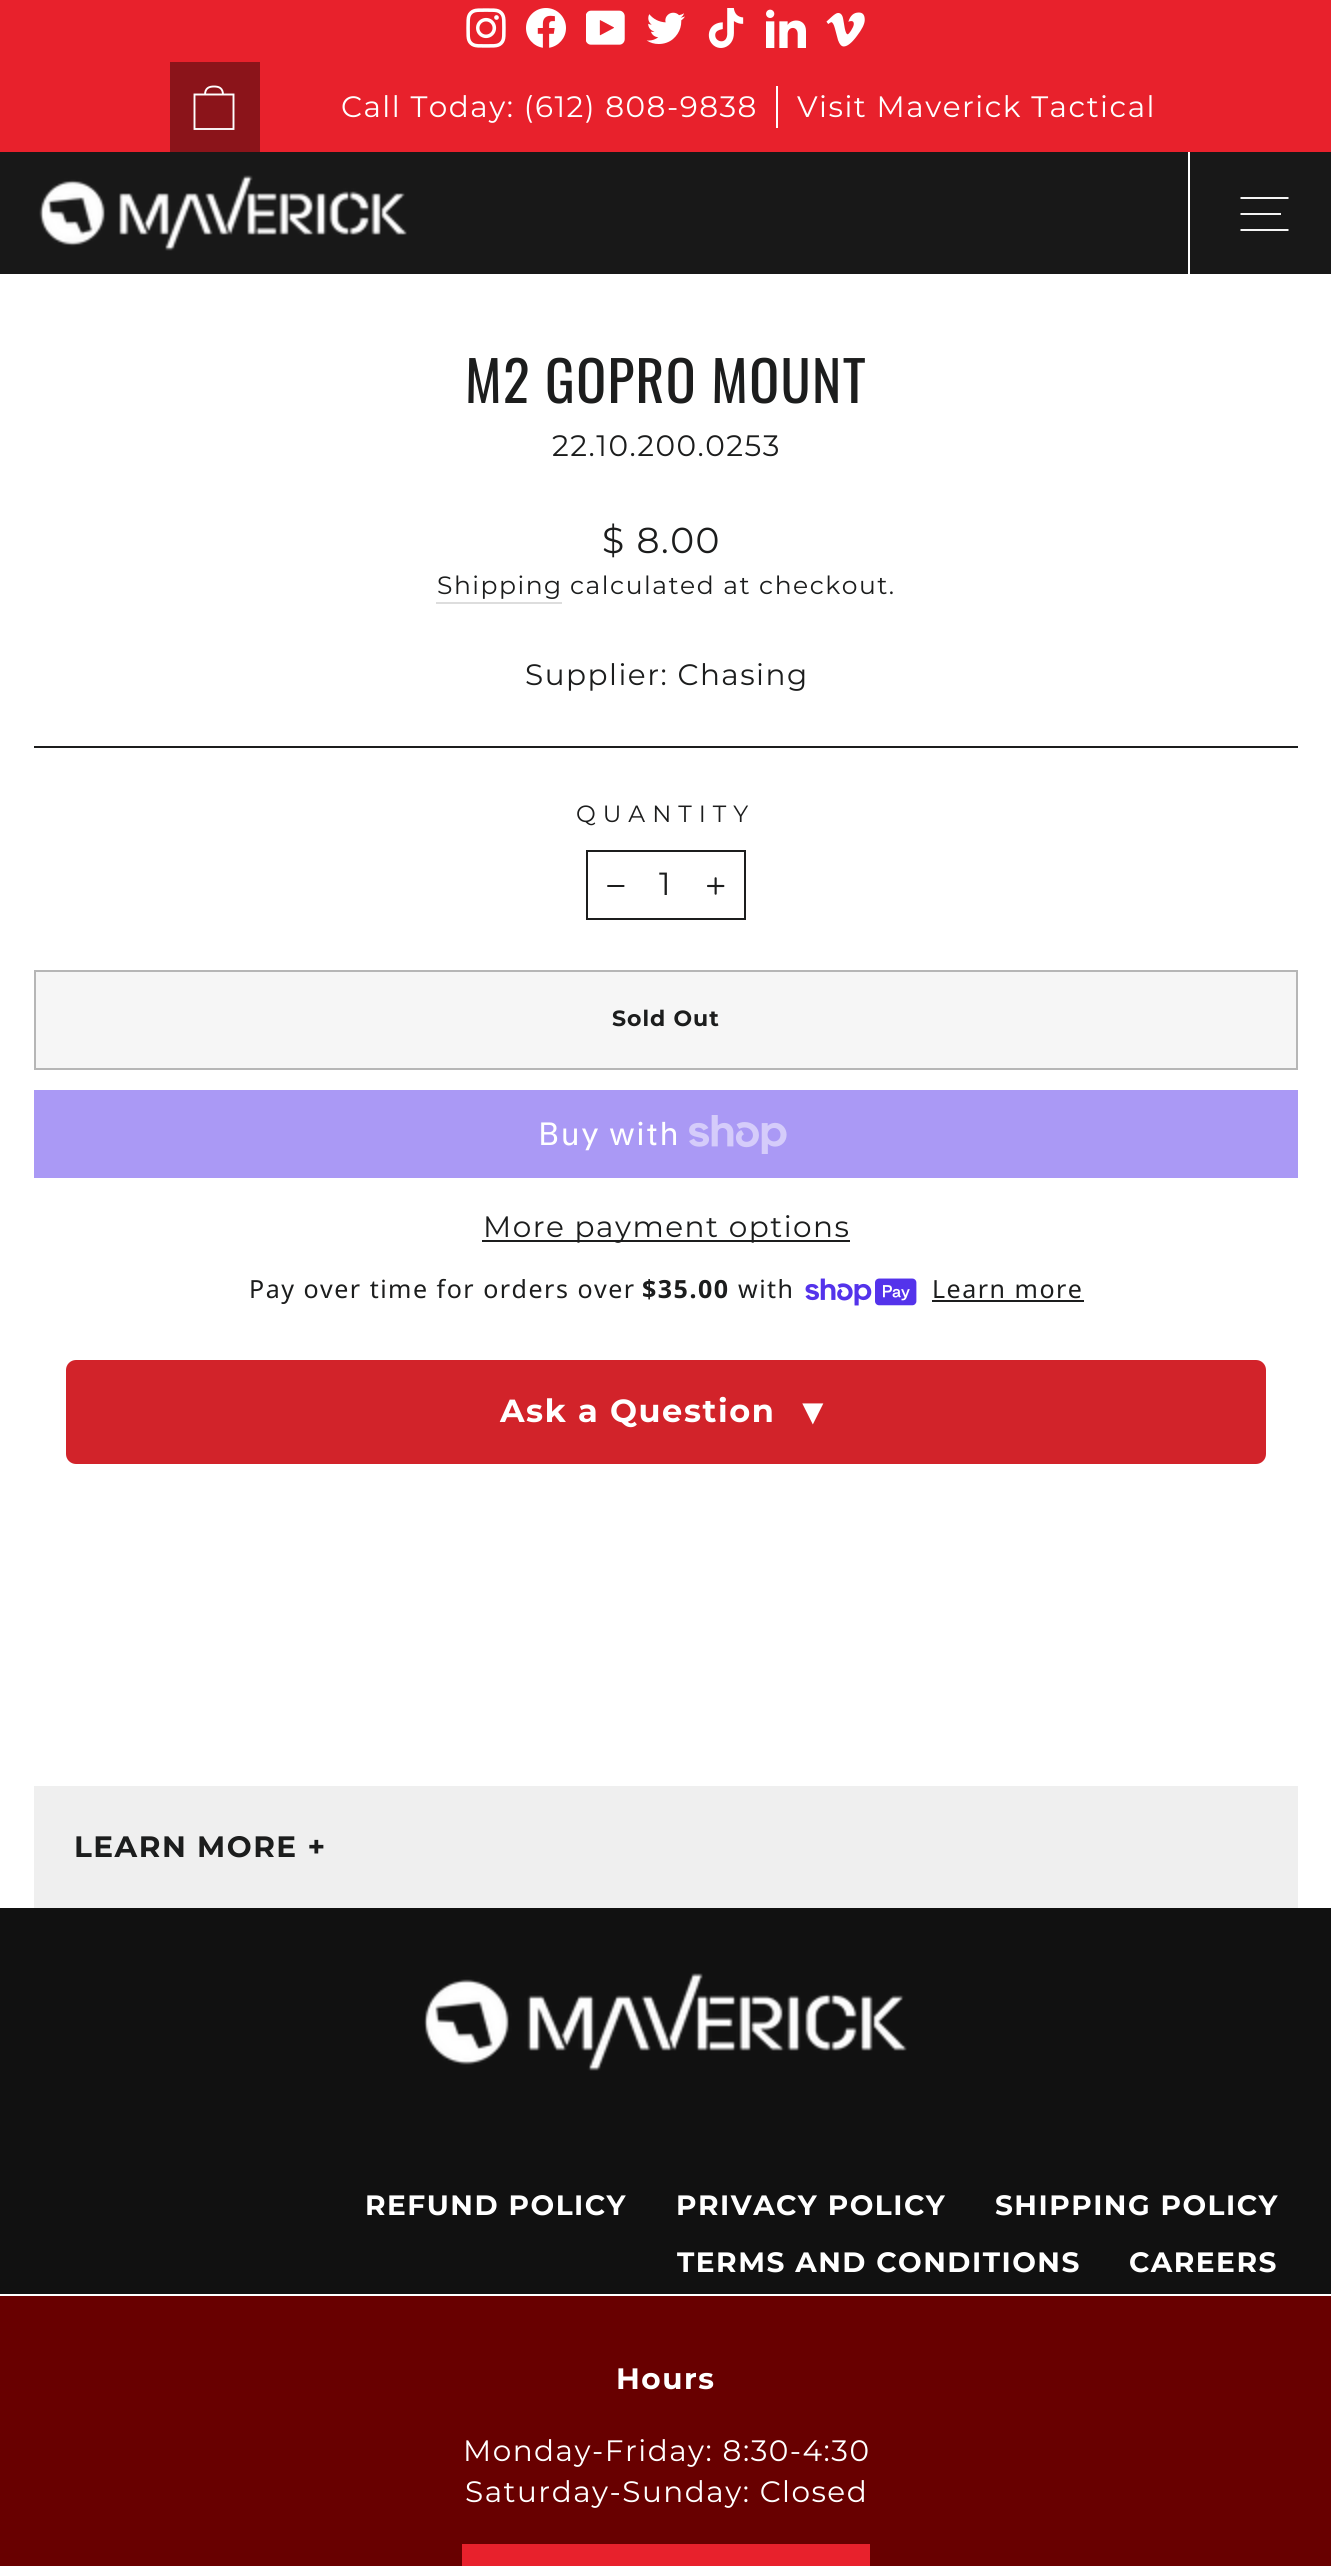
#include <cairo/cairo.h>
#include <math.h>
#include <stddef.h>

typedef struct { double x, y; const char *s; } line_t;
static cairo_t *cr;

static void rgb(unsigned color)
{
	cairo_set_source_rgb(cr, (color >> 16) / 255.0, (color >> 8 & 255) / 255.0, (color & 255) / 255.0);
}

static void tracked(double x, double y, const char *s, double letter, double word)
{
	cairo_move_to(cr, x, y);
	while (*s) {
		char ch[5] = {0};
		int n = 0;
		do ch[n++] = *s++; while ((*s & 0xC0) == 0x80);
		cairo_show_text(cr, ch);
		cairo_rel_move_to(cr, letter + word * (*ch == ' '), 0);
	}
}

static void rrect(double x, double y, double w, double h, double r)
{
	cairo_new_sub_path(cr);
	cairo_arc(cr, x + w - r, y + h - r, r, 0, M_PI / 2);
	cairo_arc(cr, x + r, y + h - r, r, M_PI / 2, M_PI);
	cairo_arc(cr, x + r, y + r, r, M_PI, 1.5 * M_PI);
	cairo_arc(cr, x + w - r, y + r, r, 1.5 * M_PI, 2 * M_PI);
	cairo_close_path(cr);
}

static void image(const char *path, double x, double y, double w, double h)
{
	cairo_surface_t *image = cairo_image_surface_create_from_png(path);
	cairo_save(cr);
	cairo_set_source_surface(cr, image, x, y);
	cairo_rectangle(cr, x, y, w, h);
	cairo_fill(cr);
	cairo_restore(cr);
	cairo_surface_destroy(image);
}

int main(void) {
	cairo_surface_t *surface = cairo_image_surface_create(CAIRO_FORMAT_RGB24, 1331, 2566);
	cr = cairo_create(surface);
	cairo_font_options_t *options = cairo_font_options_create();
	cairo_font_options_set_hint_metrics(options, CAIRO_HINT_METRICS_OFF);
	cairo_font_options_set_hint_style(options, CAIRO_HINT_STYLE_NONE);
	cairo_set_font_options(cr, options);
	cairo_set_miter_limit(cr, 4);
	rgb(0xffffff);
	cairo_paint(cr);
	rgb(0x181818);
	cairo_rectangle(cr, 0, 152, 1331, 122);
	cairo_fill(cr);
	rgb(0xe8212c);
	cairo_rectangle(cr, 0, 0, 1331, 152);
	cairo_fill(cr);
	image("img/1.png", 466, 8, 40, 40);
	image("img/2.png", 526, 8, 40, 40);
	image("img/3.png", 586, 10, 39, 35);
	image("img/4.png", 646, 12, 39, 32);
	image("img/5.png", 708, 8, 36, 40);
	image("img/6.png", 766, 9, 40, 39);
	image("img/7.png", 826, 12, 39, 35);
	rgb(0x8b141a);
	cairo_rectangle(cr, 170, 62, 90, 90);
	cairo_fill(cr);
	cairo_new_path(cr);
	cairo_move_to(cr, 194.5, 94.5);
	cairo_line_to(cr, 233.5, 94.5);
	cairo_line_to(cr, 233.5, 129);
	cairo_line_to(cr, 194.5, 129);
	cairo_close_path(cr);
	cairo_move_to(cr, 205, 95);
	cairo_curve_to(cr, 205, 88, 209, 86.5, 214, 86.5);
	cairo_curve_to(cr, 219, 86.5, 223, 88, 223, 95);
	rgb(0xffffff);
	cairo_set_line_width(cr, 1.9);
	cairo_stroke(cr);
	cairo_rectangle(cr, 776, 86, 2, 42);
	cairo_fill(cr);
	cairo_rectangle(cr, 1188, 152, 2, 122);
	cairo_fill(cr);
	image("img/8.png", 39, 175, 368, 76);
	cairo_new_path(cr);
	cairo_move_to(cr, 1240.5, 198);
	cairo_line_to(cr, 1288.5, 198);
	cairo_move_to(cr, 1240.5, 214);
	cairo_line_to(cr, 1281, 214);
	cairo_move_to(cr, 1240.5, 230);
	cairo_line_to(cr, 1288.5, 230);
	cairo_stroke(cr);
	rgb(0xdddddd);
	cairo_rectangle(cr, 436, 602, 126, 2);
	cairo_fill(cr);
	rgb(0x1c1d1d);
	cairo_rectangle(cr, 34, 746, 1264, 2);
	cairo_fill(cr);
	cairo_rectangle(cr, 587, 851, 158, 68);
	cairo_set_line_width(cr, 2);
	cairo_stroke(cr);
	image("img/9.png", 607, 885, 18, 2);
	image("img/10.png", 707, 877, 18, 18);
	rgb(0xf6f6f6);
	cairo_rectangle(cr, 35, 971, 1262, 98);
	cairo_fill_preserve(cr);
	rgb(0xb6b6b6);
	cairo_stroke(cr);
	rgb(0xaa99f5);
	cairo_rectangle(cr, 34, 1090, 1264, 88);
	cairo_fill(cr);
	image("img/11.png", 689, 1115, 98, 39);
	rgb(0x1c1d1d);
	cairo_rectangle(cr, 482, 1240, 368, 2);
	cairo_fill(cr);
	image("img/12.png", 805, 1278, 112, 28);
	cairo_rectangle(cr, 932, 1300, 152, 2);
	cairo_fill(cr);
	rgb(0xd2232a);
	rrect(66, 1360, 1200, 104, 10);
	cairo_fill(cr);
	rgb(0xefefef);
	cairo_rectangle(cr, 34, 1786, 1264, 122);
	cairo_fill(cr);
	rgb(0x111111);
	cairo_rectangle(cr, 0, 1908, 1331, 386);
	cairo_fill(cr);
	image("img/13.png", 424, 1973, 483, 98);
	rgb(0x680000);
	cairo_rectangle(cr, 0, 2296, 1331, 270);
	cairo_fill(cr);
	rgb(0xe8212c);
	cairo_rectangle(cr, 462, 2544, 408, 22);
	cairo_fill(cr);
	cairo_select_font_face(cr, "Montserrat", CAIRO_FONT_SLANT_NORMAL, CAIRO_FONT_WEIGHT_NORMAL);
	cairo_set_font_size(cr, 29.5);
	rgb(0xffffff);
	tracked(341, 117, "Call Today: (612) 808-9838", 1.5, 0);
	tracked(797, 117, "Visit Maverick Tactical", 1.5, 0);
	cairo_select_font_face(cr, "Oswald", CAIRO_FONT_SLANT_NORMAL, CAIRO_FONT_WEIGHT_NORMAL);
	cairo_set_font_size(cr, 55.5);
	rgb(0x1c1d1d);
	tracked(465, 403, "M2 GOPRO MOUNT", 1.4, 0);
	cairo_select_font_face(cr, "Montserrat", CAIRO_FONT_SLANT_NORMAL, CAIRO_FONT_WEIGHT_NORMAL);
	cairo_set_font_size(cr, 29.5);
	tracked(552, 456, "22.10.200.0253", 1.5, 0);
	cairo_set_font_size(cr, 36);
	tracked(602, 553, "$ 8.00", 1.5, 0);
	cairo_set_font_size(cr, 25);
	tracked(437, 594, "Shipping", 1.5, 0);
	tracked(570, 594, "calculated at checkout.", 1.5, 0);
	cairo_set_font_size(cr, 29.5);
	tracked(525, 685, "Supplier: Chasing", 1.5, 0);
	cairo_set_font_size(cr, 23.5);
	tracked(576, 822, "QUANTITY", 7, 0);
	cairo_set_font_size(cr, 32);
	tracked(659, 895, "1", 1.6, 0);
	cairo_select_font_face(cr, "Montserrat", CAIRO_FONT_SLANT_NORMAL, CAIRO_FONT_WEIGHT_BOLD);
	cairo_set_font_size(cr, 22);
	tracked(612, 1026, "Sold Out", 1, 0);
	cairo_select_font_face(cr, "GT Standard", CAIRO_FONT_SLANT_NORMAL, CAIRO_FONT_WEIGHT_NORMAL);
	cairo_set_font_size(cr, 32);
	rgb(0xffffff);
	tracked(538, 1145, "Buy with", 1.5, 0);
	cairo_select_font_face(cr, "Montserrat", CAIRO_FONT_SLANT_NORMAL, CAIRO_FONT_WEIGHT_NORMAL);
	cairo_set_font_size(cr, 29.5);
	rgb(0x1c1d1d);
	tracked(483, 1237, "More payment options", 1.5, 0);
	cairo_select_font_face(cr, "Noto Sans", CAIRO_FONT_SLANT_NORMAL, CAIRO_FONT_WEIGHT_NORMAL);
	cairo_set_font_size(cr, 25);
	tracked(249, 1298, "Pay over time for orders over", 1.5, 0);
	cairo_select_font_face(cr, "Noto Sans", CAIRO_FONT_SLANT_NORMAL, CAIRO_FONT_WEIGHT_BOLD);
	tracked(642, 1298, "$35.00", 1.5, 0);
	cairo_select_font_face(cr, "Noto Sans", CAIRO_FONT_SLANT_NORMAL, CAIRO_FONT_WEIGHT_NORMAL);
	tracked(738, 1298, "with", 1.5, 0);
	tracked(932, 1298, "Learn more", 1.5, 0);
	cairo_select_font_face(cr, "Montserrat", CAIRO_FONT_SLANT_NORMAL, CAIRO_FONT_WEIGHT_BOLD);
	cairo_set_font_size(cr, 32);
	rgb(0xffffff);
	tracked(500, 1422, "Ask a Question", 1.6, 0);
	cairo_select_font_face(cr, "Liberation Sans", CAIRO_FONT_SLANT_NORMAL, CAIRO_FONT_WEIGHT_BOLD);
	cairo_set_font_size(cr, 36);
	tracked(795, 1424, "▼", 1.6, 0);
	cairo_select_font_face(cr, "Montserrat", CAIRO_FONT_SLANT_NORMAL, CAIRO_FONT_WEIGHT_BOLD);
	cairo_set_font_size(cr, 29.5);
	rgb(0x1c1d1d);
	tracked(74, 1857, "LEARN MORE +", 1.5, 0);
	cairo_set_font_size(cr, 28);
	rgb(0xffffff);
	{
		static const line_t items[] = {
			{365, 2215, "REFUND POLICY"},
			{676, 2215, "PRIVACY POLICY"},
			{995, 2215, "SHIPPING POLICY"},
			{677, 2272, "TERMS AND CONDITIONS"},
			{1129, 2272, "CAREERS"},
		};
		for (size_t i = 0; i < sizeof items / sizeof *items; i++) {
			tracked(items[i].x, items[i].y, items[i].s, 1.5, 0);
		}
	}
	cairo_set_font_size(cr, 29.5);
	tracked(616, 2389, "Hours", 1.5, 0);
	cairo_select_font_face(cr, "Montserrat", CAIRO_FONT_SLANT_NORMAL, CAIRO_FONT_WEIGHT_NORMAL);
	tracked(463, 2461, "Monday-Friday: 8:30-4:30", 1.5, 0);
	tracked(465, 2502, "Saturday-Sunday: Closed", 1.5, 0);
	cairo_surface_write_to_png(surface, "page.png");
	cairo_font_options_destroy(options);
	cairo_destroy(cr);
	cairo_surface_destroy(surface);
	return 0;
}
